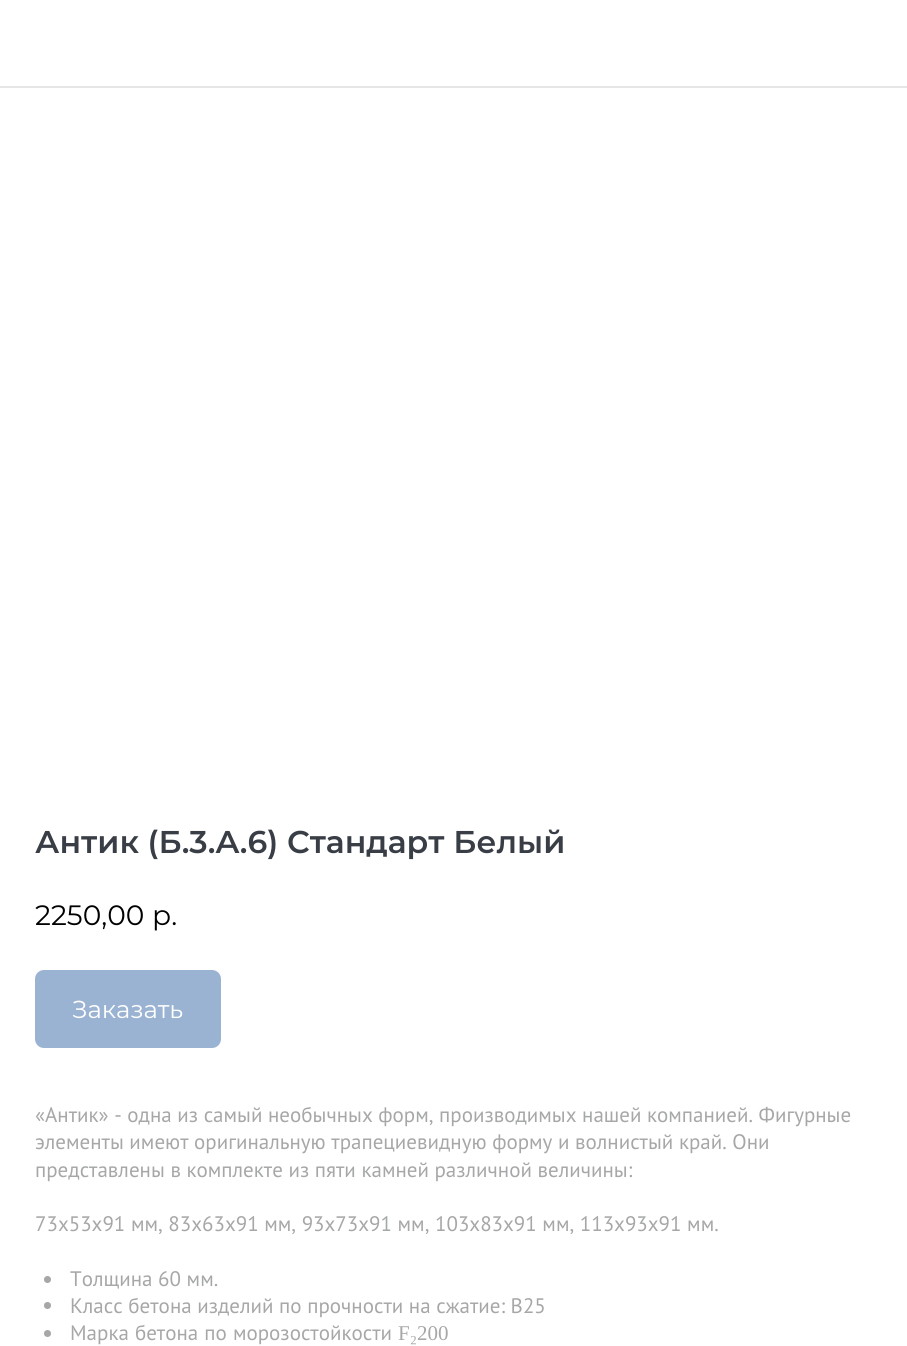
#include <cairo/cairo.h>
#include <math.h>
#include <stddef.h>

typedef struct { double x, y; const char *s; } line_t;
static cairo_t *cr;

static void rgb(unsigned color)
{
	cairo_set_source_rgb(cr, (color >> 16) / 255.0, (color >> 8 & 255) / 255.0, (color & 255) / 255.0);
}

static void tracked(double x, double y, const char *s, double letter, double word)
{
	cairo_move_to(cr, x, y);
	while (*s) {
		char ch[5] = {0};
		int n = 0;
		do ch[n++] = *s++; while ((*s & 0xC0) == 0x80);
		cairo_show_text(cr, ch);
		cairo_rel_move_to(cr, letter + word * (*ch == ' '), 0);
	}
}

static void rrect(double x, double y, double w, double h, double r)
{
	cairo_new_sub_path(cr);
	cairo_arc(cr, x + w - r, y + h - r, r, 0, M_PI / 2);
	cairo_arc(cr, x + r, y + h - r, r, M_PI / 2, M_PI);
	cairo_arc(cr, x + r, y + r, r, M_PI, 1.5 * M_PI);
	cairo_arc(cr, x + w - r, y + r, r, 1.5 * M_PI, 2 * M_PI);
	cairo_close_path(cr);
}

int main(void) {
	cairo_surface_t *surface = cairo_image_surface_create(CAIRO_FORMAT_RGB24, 907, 1346);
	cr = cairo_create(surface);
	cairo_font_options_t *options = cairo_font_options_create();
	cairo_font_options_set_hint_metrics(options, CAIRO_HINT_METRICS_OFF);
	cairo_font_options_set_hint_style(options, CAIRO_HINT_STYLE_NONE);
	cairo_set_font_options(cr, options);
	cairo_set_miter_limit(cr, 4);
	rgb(0xffffff);
	cairo_paint(cr);
	rgb(0xe6e6e6);
	cairo_rectangle(cr, 0, 86, 907, 2);
	cairo_fill(cr);
	rgb(0x9bb3d3);
	rrect(36, 971, 184, 76, 8);
	cairo_fill_preserve(cr);
	cairo_stroke(cr);
	rgb(0xa6a7a8);
	cairo_arc(cr, 47.5, 1279.5, 3.5, 0, 2 * M_PI);
	cairo_fill(cr);
	cairo_arc(cr, 47.5, 1305.5, 3.5, 0, 2 * M_PI);
	cairo_fill(cr);
	cairo_arc(cr, 47.5, 1333.5, 3.5, 0, 2 * M_PI);
	cairo_fill(cr);
	cairo_select_font_face(cr, "Montserrat SemiBold", CAIRO_FONT_SLANT_NORMAL, CAIRO_FONT_WEIGHT_NORMAL);
	cairo_set_font_size(cr, 31.5);
	rgb(0x393e46);
	cairo_move_to(cr, 35, 853);
	cairo_show_text(cr, "Антик (Б.3.А.6) Стандарт Белый");
	cairo_select_font_face(cr, "Montserrat", CAIRO_FONT_SLANT_NORMAL, CAIRO_FONT_WEIGHT_NORMAL);
	cairo_set_font_size(cr, 28);
	rgb(0x000000);
	cairo_move_to(cr, 35, 925);
	cairo_show_text(cr, "2250,00");
	cairo_move_to(cr, 152, 925);
	cairo_show_text(cr, "р.");
	cairo_set_font_size(cr, 24.5);
	rgb(0xffffff);
	cairo_move_to(cr, 72, 1018);
	cairo_show_text(cr, "Заказать");
	cairo_select_font_face(cr, "PT Sans", CAIRO_FONT_SLANT_NORMAL, CAIRO_FONT_WEIGHT_NORMAL);
	cairo_set_font_size(cr, 21);
	rgb(0xa6a7a8);
	{
		static const line_t items[] = {
			{35, 1122, "«Антик» - одна из самый необычных форм, производимых нашей компанией. Фигурные"},
			{35, 1149, "элементы имеют оригинальную трапециевидную форму и волнистый край. Они"},
			{35, 1177, "представлены в комплекте из пяти камней различной величины:"},
			{35, 1231, "73х53х91 мм, 83х63х91 мм, 93х73х91 мм, 103х83х91 мм, 113х93х91 мм."},
			{70, 1286, "Толщина 60 мм."},
			{70, 1313, "Класс бетона изделий по прочности на сжатие: В25"},
		};
		for (size_t i = 0; i < sizeof items / sizeof *items; i++) {
			cairo_move_to(cr, items[i].x, items[i].y);
			cairo_show_text(cr, items[i].s);
		}
	}
	tracked(70, 1340, "Марка бетона по морозостойкости", 0, 0.5);
	cairo_select_font_face(cr, "Liberation Serif", CAIRO_FONT_SLANT_NORMAL, CAIRO_FONT_WEIGHT_NORMAL);
	cairo_move_to(cr, 398, 1340);
	cairo_show_text(cr, "F₂200");
	cairo_surface_write_to_png(surface, "page.png");
	cairo_font_options_destroy(options);
	cairo_destroy(cr);
	cairo_surface_destroy(surface);
	return 0;
}
